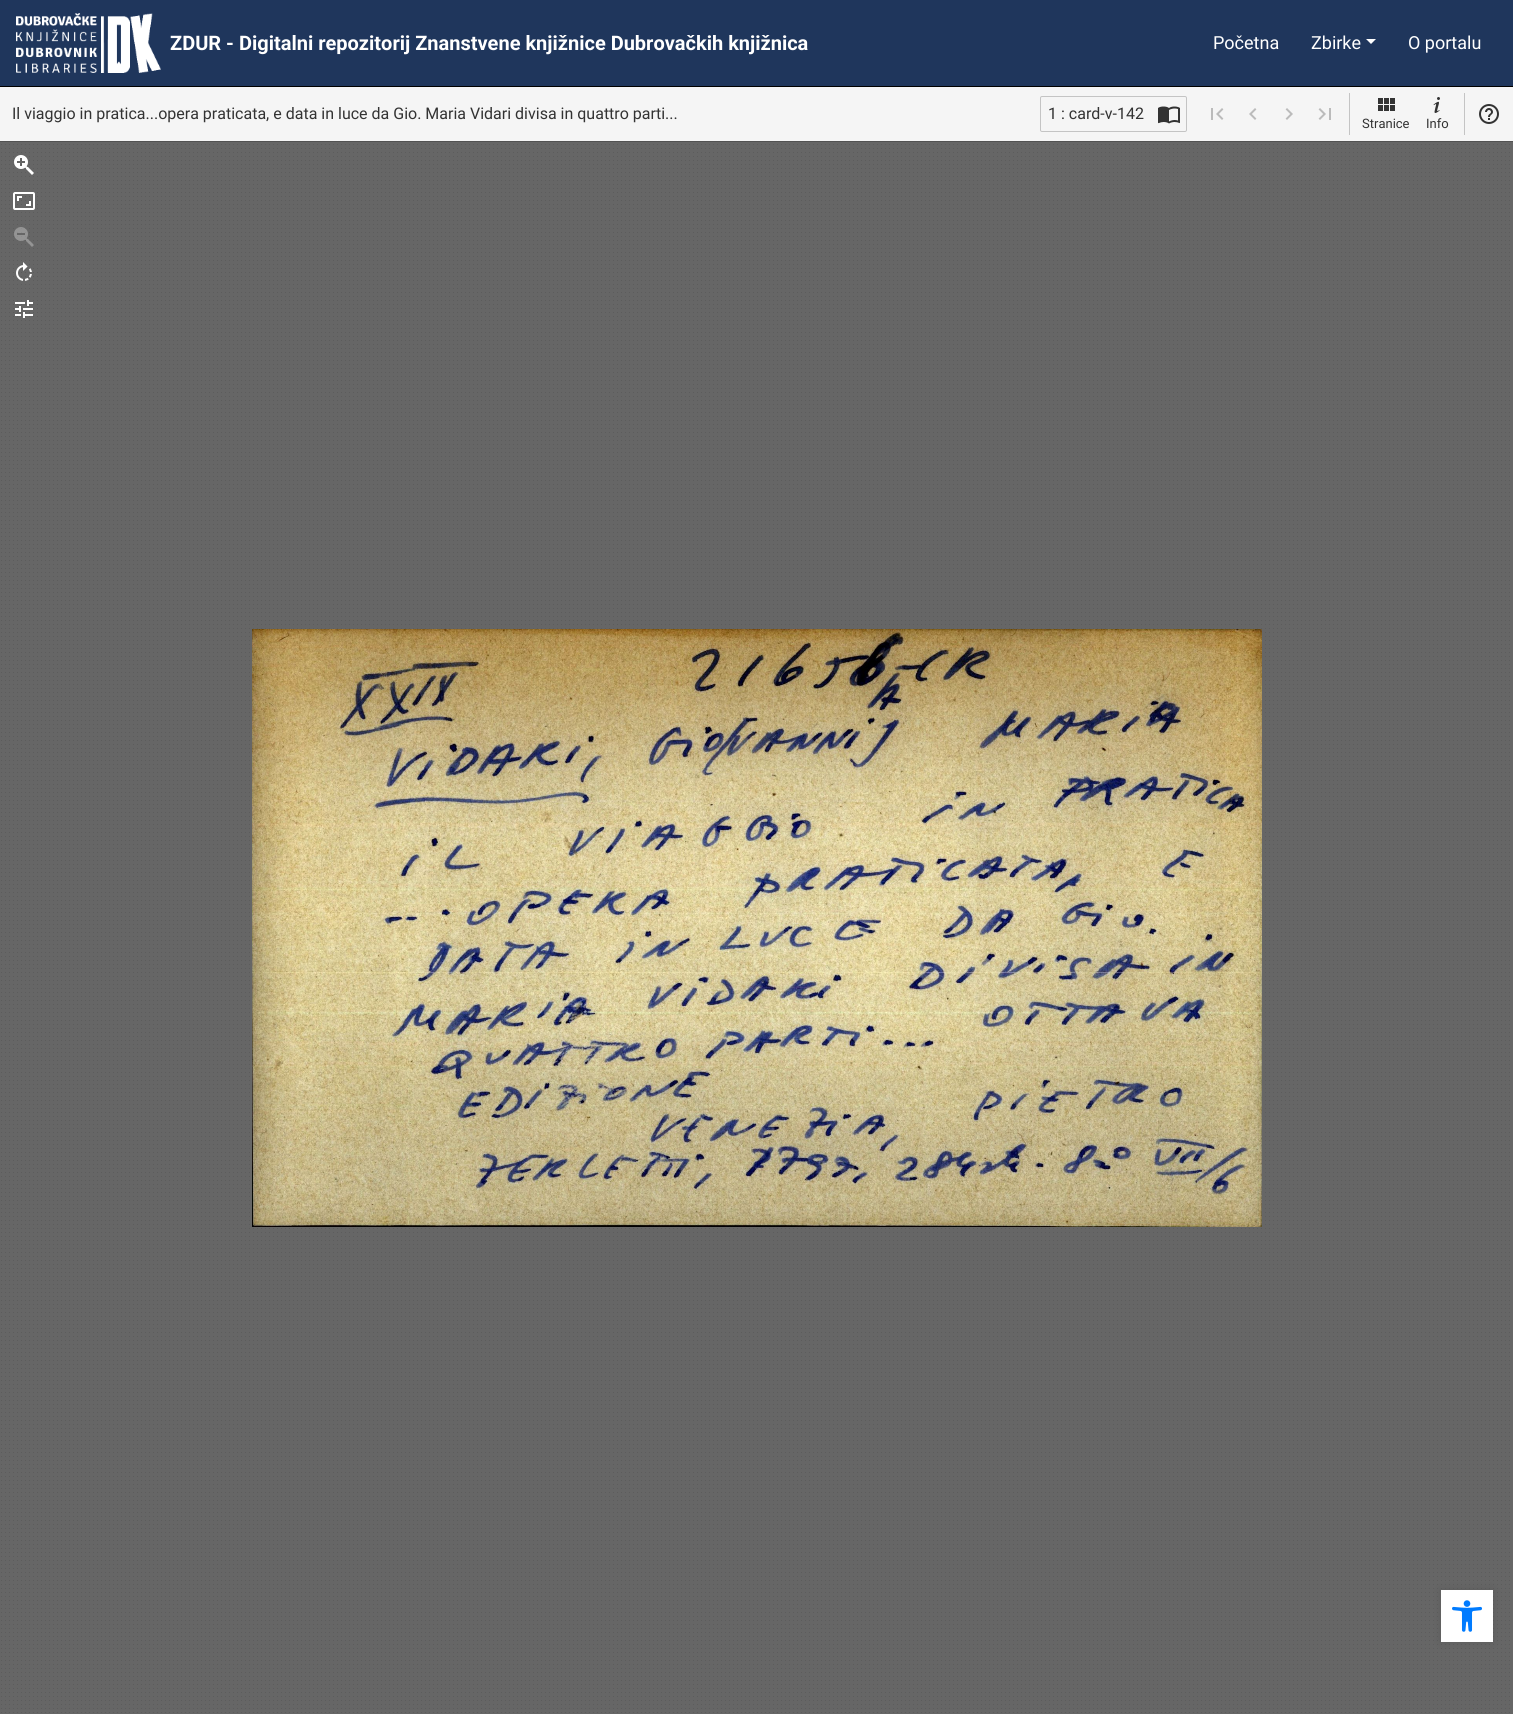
#include <cairo/cairo.h>
#include <math.h>
#include <stddef.h>

typedef struct { double x, y; const char *s; } line_t;
static cairo_t *cr;

static void rgb(unsigned color)
{
	cairo_set_source_rgb(cr, (color >> 16) / 255.0, (color >> 8 & 255) / 255.0, (color & 255) / 255.0);
}

static void rrect(double x, double y, double w, double h, double r)
{
	cairo_new_sub_path(cr);
	cairo_arc(cr, x + w - r, y + h - r, r, 0, M_PI / 2);
	cairo_arc(cr, x + r, y + h - r, r, M_PI / 2, M_PI);
	cairo_arc(cr, x + r, y + r, r, M_PI, 1.5 * M_PI);
	cairo_arc(cr, x + w - r, y + r, r, 1.5 * M_PI, 2 * M_PI);
	cairo_close_path(cr);
}

static void soft_shadow(double x, double y, double w, double h, double r, double blur, double alpha)
{
	cairo_push_group_with_content(cr, CAIRO_CONTENT_ALPHA);
	cairo_set_operator(cr, CAIRO_OPERATOR_SOURCE);
	for (int i = 15; i >= -15 && fmin(w, h) + blur * i / 3 > 0; i -= 2) {
		double e = blur * i / 6;
		cairo_set_source_rgba(cr, 0, 0, 0, alpha * erfc((i - 1) / 8.5) / 2);
		rrect(x - e, y - e, w + 2 * e, h + 2 * e, fmax(0, fmin(r + e + blur * .6, fmin(w, h) / 2 + e)));
		cairo_fill(cr);
	}
	cairo_pattern_t *soft = cairo_pop_group(cr);
	cairo_mask(cr, soft);
	cairo_pattern_destroy(soft);
}

static void image(const char *path, double x, double y, double w, double h)
{
	cairo_surface_t *image = cairo_image_surface_create_from_png(path);
	cairo_save(cr);
	cairo_set_source_surface(cr, image, x, y);
	cairo_rectangle(cr, x, y, w, h);
	cairo_fill(cr);
	cairo_restore(cr);
	cairo_surface_destroy(image);
}

int main(void) {
	cairo_surface_t *surface = cairo_image_surface_create(CAIRO_FORMAT_RGB24, 1513, 1732);
	cr = cairo_create(surface);
	cairo_font_options_t *options = cairo_font_options_create();
	cairo_font_options_set_hint_metrics(options, CAIRO_HINT_METRICS_OFF);
	cairo_font_options_set_hint_style(options, CAIRO_HINT_STYLE_NONE);
	cairo_set_font_options(cr, options);
	cairo_set_miter_limit(cr, 4);
	rgb(0xffffff);
	cairo_paint(cr);
	rgb(0x1f365c);
	cairo_rectangle(cr, 0, 0, 1513, 86);
	cairo_fill(cr);
	rgb(0x000000);
	cairo_rectangle(cr, 0, 86, 1513, 1);
	cairo_fill(cr);
	image("img/1.png", 16, 13, 145, 60);
	rgb(0xffffff);
	cairo_new_path(cr);
	cairo_move_to(cr, 1366, 39);
	cairo_line_to(cr, 1376, 39);
	cairo_line_to(cr, 1371, 44);
	cairo_close_path(cr);
	cairo_fill(cr);
	rgb(0x666666);
	cairo_rectangle(cr, 0, 142, 1513, 1572);
	cairo_fill(cr);
	image("img/2.png", 1, 144, 1509, 1569);
	rgb(0x525252);
	cairo_rectangle(cr, 0, 141, 1513, 1);
	cairo_fill(cr);
	rgb(0xf5f5f5);
	cairo_rectangle(cr, 0, 87, 1513, 54);
	cairo_fill(cr);
	rrect(1040.5, 96.5, 146, 35, 1.5);
	rgb(0xc4c4c4);
	cairo_set_line_width(cr, 1);
	cairo_stroke(cr);
	image("img/3.png", 1158, 106, 22, 18);
	image("img/4.png", 1211, 108, 13, 12);
	image("img/5.png", 1249, 108, 8, 12);
	image("img/6.png", 1285, 108, 8, 12);
	image("img/7.png", 1318, 108, 13, 12);
	cairo_rectangle(cr, 1349, 93, 1, 42);
	cairo_fill(cr);
	image("img/8.png", 1378, 98, 17, 13);
	image("img/9.png", 1433, 97, 7, 16);
	cairo_rectangle(cr, 1464, 93, 1, 42);
	cairo_fill(cr);
	image("img/10.png", 1479, 104, 20, 20);
	image("img/11.png", 14, 155, 20, 20);
	image("img/12.png", 13, 192, 22, 18);
	image("img/13.png", 14, 227, 20, 20);
	image("img/14.png", 16, 262, 16, 19);
	image("img/15.png", 15, 300, 18, 18);
	image("img/16.png", 252, 629, 1010, 598);
	rgb(0x000000);
	soft_shadow(1441, 1590, 52, 52, 0, 5, 0.1);
	rgb(0xffffff);
	cairo_rectangle(cr, 1441, 1590, 52, 52);
	cairo_fill(cr);
	image("img/17.png", 1452, 1600, 30, 32);
	cairo_select_font_face(cr, "Roboto", CAIRO_FONT_SLANT_NORMAL, CAIRO_FONT_WEIGHT_BOLD);
	cairo_set_font_size(cr, 20);
	cairo_move_to(cr, 170, 50);
	cairo_show_text(cr, "ZDUR - Digitalni repozitorij Znanstvene knjižnice Dubrovačkih knjižnica");
	cairo_select_font_face(cr, "Roboto", CAIRO_FONT_SLANT_NORMAL, CAIRO_FONT_WEIGHT_NORMAL);
	cairo_set_font_size(cr, 18);
	{
		static const line_t items[] = {
			{1213, 49, "Početna"},
			{1311, 49, "Zbirke"},
			{1408, 49, "O portalu"},
		};
		for (size_t i = 0; i < sizeof items / sizeof *items; i++) {
			cairo_move_to(cr, items[i].x, items[i].y);
			cairo_show_text(cr, items[i].s);
		}
	}
	cairo_set_font_size(cr, 16);
	rgb(0x333333);
	cairo_move_to(cr, 12, 119);
	cairo_show_text(cr, "Il viaggio in pratica...opera praticata, e data in luce da Gio. Maria Vidari divisa in quattro parti...");
	cairo_move_to(cr, 1048, 119);
	cairo_show_text(cr, "1 : card-v-142");
	cairo_set_font_size(cr, 13);
	cairo_move_to(cr, 1362, 128);
	cairo_show_text(cr, "Stranice");
	cairo_move_to(cr, 1426, 128);
	cairo_show_text(cr, "Info");
	cairo_surface_write_to_png(surface, "page.png");
	cairo_font_options_destroy(options);
	cairo_destroy(cr);
	cairo_surface_destroy(surface);
	return 0;
}
